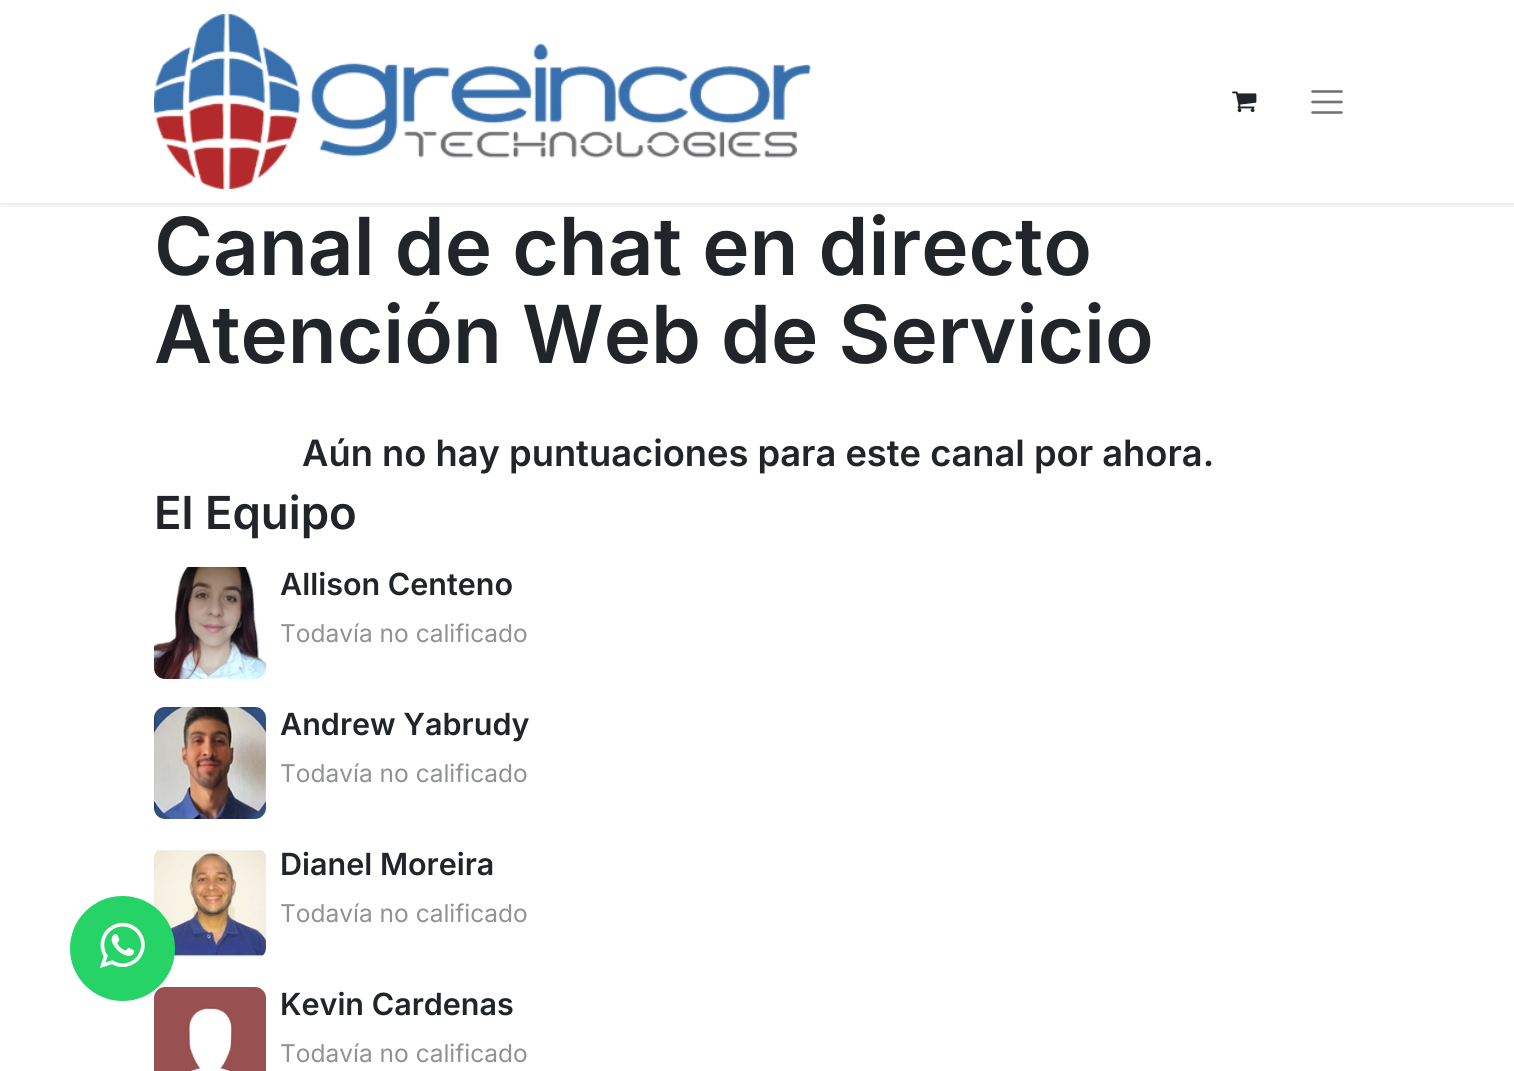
#include <cairo/cairo.h>
#include <math.h>
#include <stddef.h>

static cairo_t *cr;

static void rgb(unsigned color)
{
	cairo_set_source_rgb(cr, (color >> 16) / 255.0, (color >> 8 & 255) / 255.0, (color & 255) / 255.0);
}

static void rrect(double x, double y, double w, double h, double r)
{
	cairo_new_sub_path(cr);
	cairo_arc(cr, x + w - r, y + h - r, r, 0, M_PI / 2);
	cairo_arc(cr, x + r, y + h - r, r, M_PI / 2, M_PI);
	cairo_arc(cr, x + r, y + r, r, M_PI, 1.5 * M_PI);
	cairo_arc(cr, x + w - r, y + r, r, 1.5 * M_PI, 2 * M_PI);
	cairo_close_path(cr);
}

static void soft_shadow(double x, double y, double w, double h, double r, double blur, double alpha)
{
	cairo_push_group_with_content(cr, CAIRO_CONTENT_ALPHA);
	cairo_set_operator(cr, CAIRO_OPERATOR_SOURCE);
	for (int i = 15; i >= -15 && fmin(w, h) + blur * i / 3 > 0; i -= 2) {
		double e = blur * i / 6;
		cairo_set_source_rgba(cr, 0, 0, 0, alpha * erfc((i - 1) / 8.5) / 2);
		rrect(x - e, y - e, w + 2 * e, h + 2 * e, fmax(0, fmin(r + e + blur * .6, fmin(w, h) / 2 + e)));
		cairo_fill(cr);
	}
	cairo_pattern_t *soft = cairo_pop_group(cr);
	cairo_mask(cr, soft);
	cairo_pattern_destroy(soft);
}

static void image(const char *path, double x, double y, double w, double h)
{
	cairo_surface_t *image = cairo_image_surface_create_from_png(path);
	cairo_save(cr);
	cairo_set_source_surface(cr, image, x, y);
	cairo_rectangle(cr, x, y, w, h);
	cairo_fill(cr);
	cairo_restore(cr);
	cairo_surface_destroy(image);
}

int main(void) {
	cairo_surface_t *surface = cairo_image_surface_create(CAIRO_FORMAT_RGB24, 1514, 1071);
	cr = cairo_create(surface);
	cairo_font_options_t *options = cairo_font_options_create();
	cairo_font_options_set_hint_metrics(options, CAIRO_HINT_METRICS_OFF);
	cairo_font_options_set_hint_style(options, CAIRO_HINT_STYLE_NONE);
	cairo_set_font_options(cr, options);
	cairo_set_miter_limit(cr, 4);
	rgb(0xffffff);
	cairo_paint(cr);
	image("img/6.png", 154, 847, 112, 112);
	image("img/7.png", 154, 987, 112, 84);
	rgb(0x25d366);
	cairo_arc(cr, 122.5, 948.5, 52.5, 0, 2 * M_PI);
	cairo_fill(cr);
	image("img/1.png", 99, 922, 46, 47);
	cairo_save(cr);
	cairo_rectangle(cr, 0, 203, 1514, 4);
	cairo_clip(cr);
	rgb(0x000000);
	soft_shadow(0, 2, 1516, 203, 0, 2.5, 0.1);
	cairo_restore(cr);
	image("img/2.png", 154, 14, 657, 175);
	image("img/3.png", 1232, 91, 25, 22);
	cairo_new_path(cr);
	cairo_move_to(cr, 1312.5, 91.5);
	cairo_line_to(cr, 1341.5, 91.5);
	cairo_move_to(cr, 1312.5, 102);
	cairo_line_to(cr, 1341.5, 102);
	cairo_move_to(cr, 1312.5, 112.5);
	cairo_line_to(cr, 1341.5, 112.5);
	rgb(0x737373);
	cairo_set_line_width(cr, 2.6);
	cairo_set_line_cap(cr, CAIRO_LINE_CAP_ROUND);
	cairo_stroke(cr);
	image("img/4.png", 154, 567, 112, 112);
	image("img/5.png", 154, 707, 112, 112);
	cairo_select_font_face(cr, "Inter SemiBold", CAIRO_FONT_SLANT_NORMAL, CAIRO_FONT_WEIGHT_NORMAL);
	cairo_set_font_size(cr, 80);
	rgb(0x212529);
	cairo_move_to(cr, 154, 275);
	cairo_show_text(cr, "Canal de chat en directo");
	cairo_move_to(cr, 154, 363);
	cairo_show_text(cr, "Atención Web de Servicio");
	cairo_set_font_size(cr, 36.3);
	cairo_move_to(cr, 302, 466);
	cairo_show_text(cr, "Aún no hay puntuaciones para este canal por ahora.");
	cairo_set_font_size(cr, 45.5);
	cairo_move_to(cr, 154, 529);
	cairo_show_text(cr, "El Equipo");
	cairo_set_font_size(cr, 30.5);
	cairo_move_to(cr, 280, 595);
	cairo_show_text(cr, "Allison Centeno");
	cairo_select_font_face(cr, "Inter", CAIRO_FONT_SLANT_NORMAL, CAIRO_FONT_WEIGHT_NORMAL);
	cairo_set_font_size(cr, 24.5);
	rgb(0x909294);
	cairo_move_to(cr, 280, 642);
	cairo_show_text(cr, "Todavía no calificado");
	cairo_select_font_face(cr, "Inter SemiBold", CAIRO_FONT_SLANT_NORMAL, CAIRO_FONT_WEIGHT_NORMAL);
	cairo_set_font_size(cr, 30.5);
	rgb(0x212529);
	cairo_move_to(cr, 280, 735);
	cairo_show_text(cr, "Andrew Yabrudy");
	cairo_select_font_face(cr, "Inter", CAIRO_FONT_SLANT_NORMAL, CAIRO_FONT_WEIGHT_NORMAL);
	cairo_set_font_size(cr, 24.5);
	rgb(0x909294);
	cairo_move_to(cr, 280, 782);
	cairo_show_text(cr, "Todavía no calificado");
	cairo_select_font_face(cr, "Inter SemiBold", CAIRO_FONT_SLANT_NORMAL, CAIRO_FONT_WEIGHT_NORMAL);
	cairo_set_font_size(cr, 30.5);
	rgb(0x212529);
	cairo_move_to(cr, 280, 875);
	cairo_show_text(cr, "Dianel Moreira");
	cairo_select_font_face(cr, "Inter", CAIRO_FONT_SLANT_NORMAL, CAIRO_FONT_WEIGHT_NORMAL);
	cairo_set_font_size(cr, 24.5);
	rgb(0x909294);
	cairo_move_to(cr, 280, 922);
	cairo_show_text(cr, "Todavía no calificado");
	cairo_select_font_face(cr, "Inter SemiBold", CAIRO_FONT_SLANT_NORMAL, CAIRO_FONT_WEIGHT_NORMAL);
	cairo_set_font_size(cr, 30.5);
	rgb(0x212529);
	cairo_move_to(cr, 280, 1015);
	cairo_show_text(cr, "Kevin Cardenas");
	cairo_select_font_face(cr, "Inter", CAIRO_FONT_SLANT_NORMAL, CAIRO_FONT_WEIGHT_NORMAL);
	cairo_set_font_size(cr, 24.5);
	rgb(0x909294);
	cairo_move_to(cr, 280, 1062);
	cairo_show_text(cr, "Todavía no calificado");
	cairo_surface_write_to_png(surface, "page.png");
	cairo_font_options_destroy(options);
	cairo_destroy(cr);
	cairo_surface_destroy(surface);
	return 0;
}
